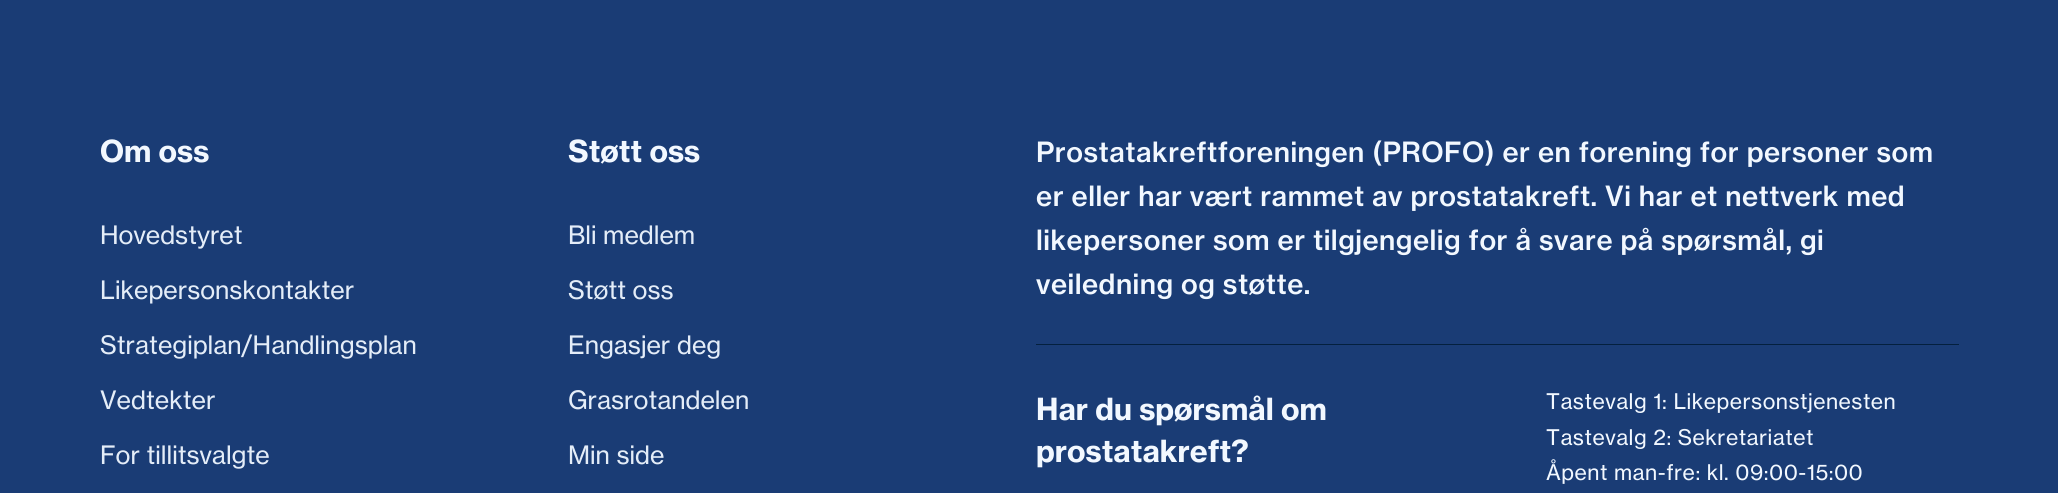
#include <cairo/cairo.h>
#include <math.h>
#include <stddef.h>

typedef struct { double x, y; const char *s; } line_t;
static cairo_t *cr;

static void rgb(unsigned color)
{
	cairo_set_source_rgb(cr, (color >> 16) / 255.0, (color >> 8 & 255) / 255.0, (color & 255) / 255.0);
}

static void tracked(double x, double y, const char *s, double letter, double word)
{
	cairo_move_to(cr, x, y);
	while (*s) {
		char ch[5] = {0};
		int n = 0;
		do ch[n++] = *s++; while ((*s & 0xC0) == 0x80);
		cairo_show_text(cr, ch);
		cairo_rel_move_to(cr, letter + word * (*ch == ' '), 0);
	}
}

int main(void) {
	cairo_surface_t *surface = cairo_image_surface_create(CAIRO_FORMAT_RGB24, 2058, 493);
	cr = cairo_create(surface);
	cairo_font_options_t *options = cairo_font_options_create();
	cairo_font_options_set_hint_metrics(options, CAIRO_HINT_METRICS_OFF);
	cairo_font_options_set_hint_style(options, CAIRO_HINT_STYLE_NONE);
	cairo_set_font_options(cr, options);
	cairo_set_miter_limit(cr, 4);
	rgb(0x1a3c75);
	cairo_paint(cr);
	rgb(0x04203e);
	cairo_rectangle(cr, 1036, 344, 923, 1);
	cairo_fill(cr);
	cairo_select_font_face(cr, "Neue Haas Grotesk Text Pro", CAIRO_FONT_SLANT_NORMAL, CAIRO_FONT_WEIGHT_BOLD);
	cairo_set_font_size(cr, 30);
	rgb(0xf2f8ff);
	cairo_move_to(cr, 100, 162);
	cairo_show_text(cr, "Om oss");
	cairo_select_font_face(cr, "Neue Haas Grotesk Text Pro", CAIRO_FONT_SLANT_NORMAL, CAIRO_FONT_WEIGHT_NORMAL);
	cairo_set_font_size(cr, 25);
	rgb(0xe4edf8);
	{
		static const line_t items[] = {
			{100, 244, "Hovedstyret"},
			{100, 299, "Likepersonskontakter"},
			{100, 354, "Strategiplan/Handlingsplan"},
			{100, 409, "Vedtekter"},
			{100, 464, "For tillitsvalgte"},
		};
		for (size_t i = 0; i < sizeof items / sizeof *items; i++) {
			cairo_move_to(cr, items[i].x, items[i].y);
			cairo_show_text(cr, items[i].s);
		}
	}
	cairo_select_font_face(cr, "Neue Haas Grotesk Text Pro", CAIRO_FONT_SLANT_NORMAL, CAIRO_FONT_WEIGHT_BOLD);
	cairo_set_font_size(cr, 30);
	rgb(0xf2f8ff);
	cairo_move_to(cr, 568, 162);
	cairo_show_text(cr, "Støtt oss");
	cairo_select_font_face(cr, "Neue Haas Grotesk Text Pro", CAIRO_FONT_SLANT_NORMAL, CAIRO_FONT_WEIGHT_NORMAL);
	cairo_set_font_size(cr, 25);
	rgb(0xe4edf8);
	{
		static const line_t items[] = {
			{568, 244, "Bli medlem"},
			{568, 299, "Støtt oss"},
			{568, 354, "Engasjer deg"},
			{568, 409, "Grasrotandelen"},
			{568, 464, "Min side"},
		};
		for (size_t i = 0; i < sizeof items / sizeof *items; i++) {
			cairo_move_to(cr, items[i].x, items[i].y);
			cairo_show_text(cr, items[i].s);
		}
	}
	cairo_select_font_face(cr, "Neue Haas Grotesk Text Pro Medium", CAIRO_FONT_SLANT_NORMAL, CAIRO_FONT_WEIGHT_NORMAL);
	cairo_set_font_size(cr, 27.5);
	rgb(0xf2f8ff);
	{
		static const line_t items[] = {
			{1036, 162, "Prostatakreftforeningen (PROFO) er en forening for personer som"},
			{1036, 206, "er eller har vært rammet av prostatakreft. Vi har et nettverk med"},
			{1036, 250, "likepersoner som er tilgjengelig for å svare på spørsmål, gi"},
			{1036, 294, "veiledning og støtte."},
		};
		for (size_t i = 0; i < sizeof items / sizeof *items; i++) {
			tracked(items[i].x, items[i].y, items[i].s, 0.5, 0);
		}
	}
	cairo_select_font_face(cr, "Neue Haas Grotesk Text Pro", CAIRO_FONT_SLANT_NORMAL, CAIRO_FONT_WEIGHT_BOLD);
	cairo_set_font_size(cr, 30);
	cairo_move_to(cr, 1036, 420);
	cairo_show_text(cr, "Har du spørsmål om");
	cairo_move_to(cr, 1036, 462);
	cairo_show_text(cr, "prostatakreft?");
	cairo_select_font_face(cr, "Neue Haas Grotesk Text Pro", CAIRO_FONT_SLANT_NORMAL, CAIRO_FONT_WEIGHT_NORMAL);
	cairo_set_font_size(cr, 21.25);
	{
		static const line_t items[] = {
			{1546, 409, "Tastevalg 1: Likepersonstjenesten"},
			{1546, 445, "Tastevalg 2: Sekretariatet"},
			{1546, 480, "Åpent man-fre: kl. 09:00-15:00"},
		};
		for (size_t i = 0; i < sizeof items / sizeof *items; i++) {
			tracked(items[i].x, items[i].y, items[i].s, 0.5, 0);
		}
	}
	cairo_surface_write_to_png(surface, "page.png");
	cairo_font_options_destroy(options);
	cairo_destroy(cr);
	cairo_surface_destroy(surface);
	return 0;
}
